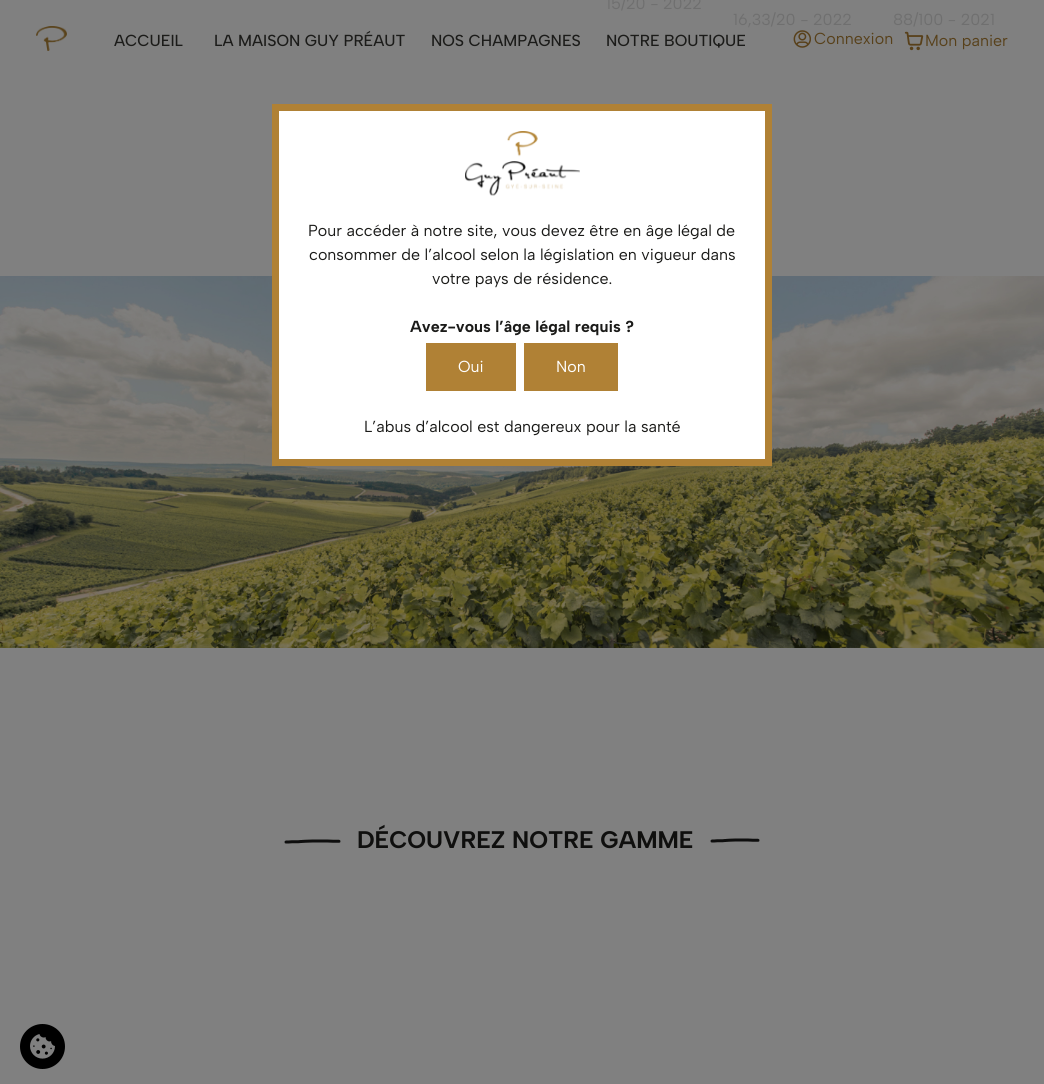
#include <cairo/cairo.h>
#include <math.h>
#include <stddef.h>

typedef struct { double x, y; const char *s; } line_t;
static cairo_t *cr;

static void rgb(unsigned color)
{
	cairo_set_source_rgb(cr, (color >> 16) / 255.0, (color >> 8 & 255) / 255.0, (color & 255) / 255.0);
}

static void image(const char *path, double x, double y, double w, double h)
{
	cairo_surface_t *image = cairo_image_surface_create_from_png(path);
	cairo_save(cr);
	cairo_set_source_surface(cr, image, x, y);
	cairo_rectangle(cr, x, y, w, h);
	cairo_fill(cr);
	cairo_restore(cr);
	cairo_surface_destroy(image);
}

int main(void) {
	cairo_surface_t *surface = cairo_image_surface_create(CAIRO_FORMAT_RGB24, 1044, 1084);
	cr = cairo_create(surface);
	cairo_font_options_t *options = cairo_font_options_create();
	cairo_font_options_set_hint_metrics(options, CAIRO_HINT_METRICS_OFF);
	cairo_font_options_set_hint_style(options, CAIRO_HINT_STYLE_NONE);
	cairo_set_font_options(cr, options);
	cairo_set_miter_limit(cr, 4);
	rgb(0x808080);
	cairo_paint(cr);
	image("img/1.png", 0, 276, 1044, 372);
	image("img/2.png", 284, 839, 57, 5);
	image("img/3.png", 710, 838, 50, 5);
	image("img/4.png", 36, 26, 31, 25);
	image("img/5.png", 793, 30, 18, 18);
	image("img/6.png", 904, 31, 20, 20);
	rgb(0xffffff);
	cairo_rectangle(cr, 275.5, 107.5, 493, 355);
	cairo_fill_preserve(cr);
	rgb(0xb08135);
	cairo_set_line_width(cr, 7);
	cairo_stroke(cr);
	image("img/7.png", 465, 131, 115, 65);
	cairo_rectangle(cr, 426, 343, 90, 48);
	cairo_fill(cr);
	cairo_rectangle(cr, 524, 343, 94, 48);
	cairo_fill(cr);
	rgb(0x000000);
	cairo_arc(cr, 42.5, 1046.5, 22.5, 0, 2 * M_PI);
	cairo_fill(cr);
	image("img/8.png", 30, 1034, 25, 25);
	cairo_select_font_face(cr, "Albert Sans", CAIRO_FONT_SLANT_NORMAL, CAIRO_FONT_WEIGHT_NORMAL);
	cairo_set_font_size(cr, 16);
	rgb(0x6f6f6f);
	{
		static const line_t items[] = {
			{606, 9, "15/20 - 2022"},
			{733, 25, "16,33/20 - 2022"},
			{893, 25, "88/100 - 2021"},
		};
		for (size_t i = 0; i < sizeof items / sizeof *items; i++) {
			cairo_move_to(cr, items[i].x, items[i].y);
			cairo_show_text(cr, items[i].s);
		}
	}
	cairo_select_font_face(cr, "Albert Sans", CAIRO_FONT_SLANT_NORMAL, CAIRO_FONT_WEIGHT_BOLD);
	cairo_set_font_size(cr, 24);
	rgb(0x0f0f0e);
	cairo_move_to(cr, 357, 848);
	cairo_show_text(cr, "DÉCOUVREZ NOTRE GAMME");
	cairo_select_font_face(cr, "Albert Sans Medium", CAIRO_FONT_SLANT_NORMAL, CAIRO_FONT_WEIGHT_NORMAL);
	cairo_set_font_size(cr, 16);
	rgb(0x1b1b19);
	{
		static const line_t items[] = {
			{114, 46, "ACCUEIL"},
			{214, 46, "LA MAISON GUY PRÉAUT"},
			{431, 46, "NOS CHAMPAGNES"},
			{606, 46, "NOTRE BOUTIQUE"},
		};
		for (size_t i = 0; i < sizeof items / sizeof *items; i++) {
			cairo_move_to(cr, items[i].x, items[i].y);
			cairo_show_text(cr, items[i].s);
		}
	}
	cairo_select_font_face(cr, "Albert Sans", CAIRO_FONT_SLANT_NORMAL, CAIRO_FONT_WEIGHT_NORMAL);
	rgb(0x58411b);
	cairo_move_to(cr, 814, 44);
	cairo_show_text(cr, "Connexion");
	cairo_move_to(cr, 925, 46);
	cairo_show_text(cr, "Mon panier");
	rgb(0x1b1b19);
	{
		static const line_t items[] = {
			{308, 236, "Pour accéder à notre site, vous devez être en âge légal de"},
			{309, 260, "consommer de l’alcool selon la législation en vigueur dans"},
			{432, 284, "votre pays de résidence."},
		};
		for (size_t i = 0; i < sizeof items / sizeof *items; i++) {
			cairo_move_to(cr, items[i].x, items[i].y);
			cairo_show_text(cr, items[i].s);
		}
	}
	cairo_select_font_face(cr, "Albert Sans", CAIRO_FONT_SLANT_NORMAL, CAIRO_FONT_WEIGHT_BOLD);
	cairo_move_to(cr, 410, 332);
	cairo_show_text(cr, "Avez-vous l’âge légal requis ?");
	cairo_select_font_face(cr, "Albert Sans", CAIRO_FONT_SLANT_NORMAL, CAIRO_FONT_WEIGHT_NORMAL);
	rgb(0xffffff);
	cairo_move_to(cr, 458, 372);
	cairo_show_text(cr, "Oui");
	cairo_move_to(cr, 556, 372);
	cairo_show_text(cr, "Non");
	rgb(0x1b1b19);
	cairo_move_to(cr, 364, 432);
	cairo_show_text(cr, "L’abus d’alcool est dangereux pour la santé");
	cairo_surface_write_to_png(surface, "page.png");
	cairo_font_options_destroy(options);
	cairo_destroy(cr);
	cairo_surface_destroy(surface);
	return 0;
}
